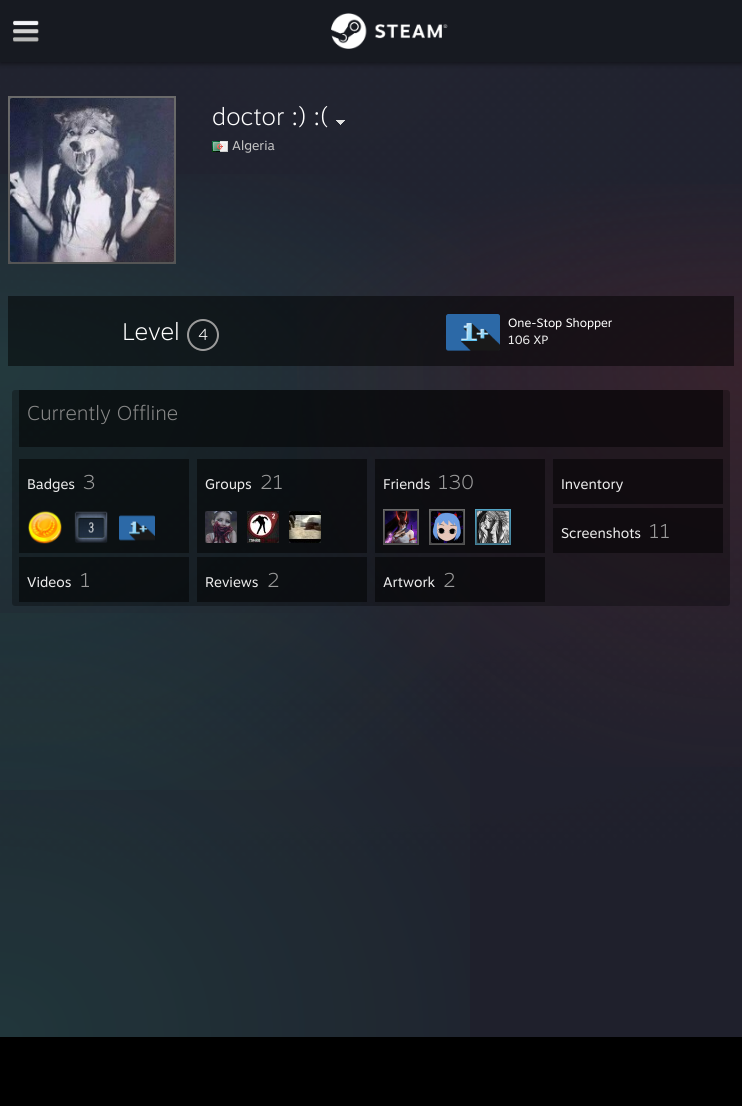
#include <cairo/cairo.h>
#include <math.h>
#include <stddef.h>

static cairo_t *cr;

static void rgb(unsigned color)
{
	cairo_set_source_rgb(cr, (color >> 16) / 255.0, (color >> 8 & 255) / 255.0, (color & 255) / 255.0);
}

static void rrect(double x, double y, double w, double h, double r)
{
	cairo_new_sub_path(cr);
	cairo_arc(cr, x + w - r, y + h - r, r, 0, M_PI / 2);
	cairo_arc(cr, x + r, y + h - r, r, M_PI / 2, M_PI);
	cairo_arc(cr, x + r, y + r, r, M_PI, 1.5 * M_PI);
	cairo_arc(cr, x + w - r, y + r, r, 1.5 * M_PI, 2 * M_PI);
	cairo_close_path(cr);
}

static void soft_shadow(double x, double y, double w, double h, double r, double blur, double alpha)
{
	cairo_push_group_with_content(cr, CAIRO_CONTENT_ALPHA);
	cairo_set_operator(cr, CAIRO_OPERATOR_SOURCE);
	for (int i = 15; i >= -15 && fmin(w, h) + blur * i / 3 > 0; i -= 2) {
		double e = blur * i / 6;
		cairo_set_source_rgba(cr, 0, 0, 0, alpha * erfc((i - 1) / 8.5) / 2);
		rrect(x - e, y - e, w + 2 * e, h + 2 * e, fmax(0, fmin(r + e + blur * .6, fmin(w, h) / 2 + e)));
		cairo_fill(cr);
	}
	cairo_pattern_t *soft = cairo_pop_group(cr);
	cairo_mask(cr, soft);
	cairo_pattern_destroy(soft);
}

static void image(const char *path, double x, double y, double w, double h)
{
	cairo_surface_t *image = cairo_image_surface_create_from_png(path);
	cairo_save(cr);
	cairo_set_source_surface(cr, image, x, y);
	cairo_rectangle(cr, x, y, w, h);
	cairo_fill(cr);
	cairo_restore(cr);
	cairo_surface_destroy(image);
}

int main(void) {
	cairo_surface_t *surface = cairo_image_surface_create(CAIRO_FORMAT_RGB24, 742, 1106);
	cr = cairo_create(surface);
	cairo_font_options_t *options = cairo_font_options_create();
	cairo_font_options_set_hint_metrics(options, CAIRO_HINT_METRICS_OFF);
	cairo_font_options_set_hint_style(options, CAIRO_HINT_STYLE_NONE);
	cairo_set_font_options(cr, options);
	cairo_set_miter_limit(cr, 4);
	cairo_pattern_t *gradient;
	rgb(0x000000);
	cairo_paint(cr);
	image("img/3.png", 0, 62, 742, 836);
	cairo_set_source_rgba(cr, 0.133, 0.137, 0.188, 0.93);
	cairo_rectangle(cr, 0, 62, 742, 304);
	cairo_fill(cr);
	rgb(0x000000);
	soft_shadow(0, 0, 742, 62, 0, 3.5, 0.75);
	rgb(0x171a21);
	cairo_rectangle(cr, 0, 0, 742, 62);
	cairo_fill(cr);
	image("img/1.png", 13, 20, 26, 22);
	image("img/2.png", 331, 13, 117, 36);
	gradient = cairo_pattern_create_radial(0, 0, 0, 0, 0, 1);
	cairo_pattern_set_matrix(gradient, &(cairo_matrix_t){1.0 / 1049, 0, 0, 1.0 / 430, -1.0 * 0 / 1049, -1.0 * 366 / 430});
	cairo_pattern_add_color_stop_rgba(gradient, 0, 0.196, 1, 0.757, 0.1);
	cairo_pattern_add_color_stop_rgba(gradient, 0.57, 0.196, 1, 0.757, 0);
	cairo_set_source(cr, gradient);
	cairo_pattern_destroy(gradient);
	cairo_rectangle(cr, 0, 174, 470, 192);
	cairo_fill(cr);
	gradient = cairo_pattern_create_radial(0, 0, 0, 0, 0, 1);
	cairo_pattern_set_matrix(gradient, &(cairo_matrix_t){1.0 / 742, 0, 0, 1.0 / 304, -1.0 * 742 / 742, -1.0 * 366 / 304});
	cairo_pattern_add_color_stop_rgba(gradient, 0, 0.427, 0.149, 0.173, 0.3);
	cairo_pattern_add_color_stop_rgba(gradient, 0.67, 0.427, 0.149, 0.173, 0);
	cairo_set_source(cr, gradient);
	cairo_pattern_destroy(gradient);
	cairo_rectangle(cr, 297, 184, 445, 182);
	cairo_fill(cr);
	gradient = cairo_pattern_create_linear(92, 96, 92, 264);
	cairo_pattern_add_color_stop_rgba(gradient, 0.05, 0.416, 0.416, 0.416, 1);
	cairo_pattern_add_color_stop_rgba(gradient, 0.95, 0.333, 0.333, 0.333, 1);
	cairo_set_source(cr, gradient);
	cairo_pattern_destroy(gradient);
	cairo_rectangle(cr, 8, 96, 168, 168);
	cairo_fill(cr);
	image("img/4.png", 10, 98, 164, 164);
	image("img/5.png", 336, 120, 9, 5);
	image("img/6.png", 212, 141, 16, 11);
	cairo_set_source_rgba(cr, 0, 0, 0, 0.5);
	cairo_rectangle(cr, 8, 296, 726, 70);
	cairo_fill(cr);
	cairo_arc(cr, 203, 335, 15, 0, 2 * M_PI);
	rgb(0x9b9b9b);
	cairo_stroke(cr);
	image("img/7.png", 446, 314, 54, 37);
	cairo_set_source_rgba(cr, 0.133, 0.137, 0.188, 0.93);
	cairo_rectangle(cr, 0, 366, 742, 671);
	cairo_fill(cr);
	gradient = cairo_pattern_create_radial(0, 0, 0, 0, 0, 1);
	cairo_pattern_set_matrix(gradient, &(cairo_matrix_t){1.0 / 1049, 0, 0, 1.0 / 949, -1.0 * 0 / 1049, -1.0 * 1037 / 949});
	cairo_pattern_add_color_stop_rgba(gradient, 0, 0.196, 1, 0.757, 0.1);
	cairo_pattern_add_color_stop_rgba(gradient, 0.57, 0.196, 1, 0.757, 0);
	cairo_set_source(cr, gradient);
	cairo_pattern_destroy(gradient);
	cairo_rectangle(cr, 0, 613, 470, 424);
	cairo_fill(cr);
	gradient = cairo_pattern_create_radial(0, 0, 0, 0, 0, 1);
	cairo_pattern_set_matrix(gradient, &(cairo_matrix_t){1.0 / 1049, 0, 0, 1.0 / 949, -1.0 * 0 / 1049, -1.0 * 366 / 949});
	cairo_pattern_add_color_stop_rgba(gradient, 0, 0.196, 1, 0.757, 0.1);
	cairo_pattern_add_color_stop_rgba(gradient, 0.57, 0.196, 1, 0.757, 0);
	cairo_set_source(cr, gradient);
	cairo_pattern_destroy(gradient);
	cairo_rectangle(cr, 0, 366, 470, 424);
	cairo_fill(cr);
	gradient = cairo_pattern_create_radial(0, 0, 0, 0, 0, 1);
	cairo_pattern_set_matrix(gradient, &(cairo_matrix_t){1.0 / 742, 0, 0, 1.0 / 671, -1.0 * 742 / 742, -1.0 * 366 / 671});
	cairo_pattern_add_color_stop_rgba(gradient, 0, 0.427, 0.149, 0.173, 0.3);
	cairo_pattern_add_color_stop_rgba(gradient, 0.67, 0.427, 0.149, 0.173, 0);
	cairo_set_source(cr, gradient);
	cairo_pattern_destroy(gradient);
	cairo_rectangle(cr, 297, 366, 445, 401);
	cairo_fill(cr);
	cairo_set_source_rgba(cr, 0, 0, 0, 0.3);
	rrect(12, 390, 718, 216, 3);
	cairo_fill(cr);
	cairo_set_source_rgba(cr, 0, 0, 0, 0.5);
	cairo_rectangle(cr, 19, 390, 704, 57);
	cairo_fill(cr);
	cairo_rectangle(cr, 19, 459, 170, 94);
	cairo_fill(cr);
	image("img/8.png", 28, 510, 34, 34);
	image("img/9.png", 74, 511, 34, 32);
	image("img/10.png", 119, 515, 36, 26);
	cairo_rectangle(cr, 197, 459, 170, 94);
	cairo_fill(cr);
	image("img/11.png", 205, 511, 32, 32);
	image("img/12.png", 247, 511, 32, 32);
	image("img/13.png", 289, 511, 32, 32);
	cairo_rectangle(cr, 375, 459, 170, 94);
	cairo_fill(cr);
	gradient = cairo_pattern_create_linear(401, 509, 401, 545);
	cairo_pattern_add_color_stop_rgba(gradient, 0.05, 0.416, 0.416, 0.416, 1);
	cairo_pattern_add_color_stop_rgba(gradient, 0.95, 0.333, 0.333, 0.333, 1);
	cairo_set_source(cr, gradient);
	cairo_pattern_destroy(gradient);
	cairo_rectangle(cr, 383, 509, 36, 36);
	cairo_fill(cr);
	gradient = cairo_pattern_create_linear(401, 510, 401, 544);
	cairo_pattern_add_color_stop_rgba(gradient, 0.05, 0.318, 0.318, 0.318, 1);
	cairo_pattern_add_color_stop_rgba(gradient, 0.95, 0.278, 0.278, 0.278, 1);
	cairo_set_source(cr, gradient);
	cairo_pattern_destroy(gradient);
	cairo_rectangle(cr, 384, 510, 34, 34);
	cairo_fill(cr);
	image("img/14.png", 385, 511, 32, 32);
	gradient = cairo_pattern_create_linear(447, 509, 447, 545);
	cairo_pattern_add_color_stop_rgba(gradient, 0.05, 0.416, 0.416, 0.416, 1);
	cairo_pattern_add_color_stop_rgba(gradient, 0.95, 0.333, 0.333, 0.333, 1);
	cairo_set_source(cr, gradient);
	cairo_pattern_destroy(gradient);
	cairo_rectangle(cr, 429, 509, 36, 36);
	cairo_fill(cr);
	gradient = cairo_pattern_create_linear(447, 510, 447, 544);
	cairo_pattern_add_color_stop_rgba(gradient, 0.05, 0.318, 0.318, 0.318, 1);
	cairo_pattern_add_color_stop_rgba(gradient, 0.95, 0.278, 0.278, 0.278, 1);
	cairo_set_source(cr, gradient);
	cairo_pattern_destroy(gradient);
	cairo_rectangle(cr, 430, 510, 34, 34);
	cairo_fill(cr);
	image("img/15.png", 431, 511, 32, 32);
	gradient = cairo_pattern_create_linear(493, 509, 493, 545);
	cairo_pattern_add_color_stop_rgba(gradient, 0.05, 0.325, 0.643, 0.769, 1);
	cairo_pattern_add_color_stop_rgba(gradient, 0.95, 0.271, 0.502, 0.592, 1);
	cairo_set_source(cr, gradient);
	cairo_pattern_destroy(gradient);
	cairo_rectangle(cr, 475, 509, 36, 36);
	cairo_fill(cr);
	gradient = cairo_pattern_create_linear(493, 510, 493, 544);
	cairo_pattern_add_color_stop_rgba(gradient, 0.05, 0.255, 0.467, 0.561, 1);
	cairo_pattern_add_color_stop_rgba(gradient, 0.95, 0.239, 0.412, 0.482, 1);
	cairo_set_source(cr, gradient);
	cairo_pattern_destroy(gradient);
	cairo_rectangle(cr, 476, 510, 34, 34);
	cairo_fill(cr);
	image("img/16.png", 477, 511, 32, 32);
	cairo_set_source_rgba(cr, 0, 0, 0, 0.5);
	cairo_rectangle(cr, 553, 459, 170, 45);
	cairo_fill(cr);
	cairo_rectangle(cr, 553, 508, 170, 45);
	cairo_fill(cr);
	cairo_rectangle(cr, 19, 557, 170, 45);
	cairo_fill(cr);
	cairo_rectangle(cr, 197, 557, 170, 45);
	cairo_fill(cr);
	cairo_rectangle(cr, 375, 557, 170, 45);
	cairo_fill(cr);
	cairo_select_font_face(cr, "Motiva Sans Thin", CAIRO_FONT_SLANT_NORMAL, CAIRO_FONT_WEIGHT_NORMAL);
	cairo_set_font_size(cr, 24);
	rgb(0xffffff);
	cairo_move_to(cr, 212, 125);
	cairo_show_text(cr, "doctor :) :(");
	cairo_select_font_face(cr, "Motiva Sans", CAIRO_FONT_SLANT_NORMAL, CAIRO_FONT_WEIGHT_NORMAL);
	cairo_set_font_size(cr, 13);
	rgb(0xc4c4c4);
	cairo_move_to(cr, 232, 150);
	cairo_show_text(cr, "Algeria");
	cairo_select_font_face(cr, "Motiva Sans Thin", CAIRO_FONT_SLANT_NORMAL, CAIRO_FONT_WEIGHT_NORMAL);
	cairo_set_font_size(cr, 24);
	rgb(0xffffff);
	cairo_move_to(cr, 122, 340);
	cairo_show_text(cr, "Level");
	cairo_set_font_size(cr, 16);
	cairo_move_to(cr, 198, 340);
	cairo_show_text(cr, "4");
	cairo_select_font_face(cr, "Motiva Sans", CAIRO_FONT_SLANT_NORMAL, CAIRO_FONT_WEIGHT_NORMAL);
	cairo_set_font_size(cr, 12);
	cairo_move_to(cr, 508, 327);
	cairo_show_text(cr, "One-Stop Shopper");
	rgb(0xebebeb);
	cairo_move_to(cr, 508, 344);
	cairo_show_text(cr, "106 XP");
	cairo_select_font_face(cr, "Motiva Sans Thin", CAIRO_FONT_SLANT_NORMAL, CAIRO_FONT_WEIGHT_NORMAL);
	cairo_set_font_size(cr, 20);
	rgb(0x898989);
	cairo_move_to(cr, 27, 420);
	cairo_show_text(cr, "Currently Offline");
	cairo_select_font_face(cr, "Motiva Sans", CAIRO_FONT_SLANT_NORMAL, CAIRO_FONT_WEIGHT_NORMAL);
	cairo_set_font_size(cr, 14);
	rgb(0xebebeb);
	cairo_move_to(cr, 27, 489);
	cairo_show_text(cr, "Badges");
	cairo_select_font_face(cr, "Motiva Sans Thin", CAIRO_FONT_SLANT_NORMAL, CAIRO_FONT_WEIGHT_NORMAL);
	cairo_set_font_size(cr, 20);
	rgb(0x9b9b9b);
	cairo_move_to(cr, 83, 489);
	cairo_show_text(cr, "3");
	cairo_select_font_face(cr, "Motiva Sans", CAIRO_FONT_SLANT_NORMAL, CAIRO_FONT_WEIGHT_NORMAL);
	cairo_set_font_size(cr, 14);
	rgb(0xebebeb);
	cairo_move_to(cr, 205, 489);
	cairo_show_text(cr, "Groups");
	cairo_select_font_face(cr, "Motiva Sans Thin", CAIRO_FONT_SLANT_NORMAL, CAIRO_FONT_WEIGHT_NORMAL);
	cairo_set_font_size(cr, 20);
	rgb(0x9b9b9b);
	cairo_move_to(cr, 260, 489);
	cairo_show_text(cr, "21");
	cairo_select_font_face(cr, "Motiva Sans", CAIRO_FONT_SLANT_NORMAL, CAIRO_FONT_WEIGHT_NORMAL);
	cairo_set_font_size(cr, 14);
	rgb(0xebebeb);
	cairo_move_to(cr, 383, 489);
	cairo_show_text(cr, "Friends");
	cairo_select_font_face(cr, "Motiva Sans Thin", CAIRO_FONT_SLANT_NORMAL, CAIRO_FONT_WEIGHT_NORMAL);
	cairo_set_font_size(cr, 20);
	rgb(0x9b9b9b);
	cairo_move_to(cr, 438, 489);
	cairo_show_text(cr, "130");
	cairo_select_font_face(cr, "Motiva Sans", CAIRO_FONT_SLANT_NORMAL, CAIRO_FONT_WEIGHT_NORMAL);
	cairo_set_font_size(cr, 14);
	rgb(0xebebeb);
	cairo_move_to(cr, 561, 489);
	cairo_show_text(cr, "Inventory");
	cairo_move_to(cr, 561, 538);
	cairo_show_text(cr, "Screenshots");
	cairo_select_font_face(cr, "Motiva Sans Thin", CAIRO_FONT_SLANT_NORMAL, CAIRO_FONT_WEIGHT_NORMAL);
	cairo_set_font_size(cr, 20);
	rgb(0x9b9b9b);
	cairo_move_to(cr, 649, 538);
	cairo_show_text(cr, "11");
	cairo_select_font_face(cr, "Motiva Sans", CAIRO_FONT_SLANT_NORMAL, CAIRO_FONT_WEIGHT_NORMAL);
	cairo_set_font_size(cr, 14);
	rgb(0xebebeb);
	cairo_move_to(cr, 27, 587);
	cairo_show_text(cr, "Videos");
	cairo_select_font_face(cr, "Motiva Sans Thin", CAIRO_FONT_SLANT_NORMAL, CAIRO_FONT_WEIGHT_NORMAL);
	cairo_set_font_size(cr, 20);
	rgb(0x9b9b9b);
	cairo_move_to(cr, 80, 587);
	cairo_show_text(cr, "1");
	cairo_select_font_face(cr, "Motiva Sans", CAIRO_FONT_SLANT_NORMAL, CAIRO_FONT_WEIGHT_NORMAL);
	cairo_set_font_size(cr, 14);
	rgb(0xebebeb);
	cairo_move_to(cr, 205, 587);
	cairo_show_text(cr, "Reviews");
	cairo_select_font_face(cr, "Motiva Sans Thin", CAIRO_FONT_SLANT_NORMAL, CAIRO_FONT_WEIGHT_NORMAL);
	cairo_set_font_size(cr, 20);
	rgb(0x9b9b9b);
	cairo_move_to(cr, 267, 587);
	cairo_show_text(cr, "2");
	cairo_select_font_face(cr, "Motiva Sans", CAIRO_FONT_SLANT_NORMAL, CAIRO_FONT_WEIGHT_NORMAL);
	cairo_set_font_size(cr, 14);
	rgb(0xebebeb);
	cairo_move_to(cr, 383, 587);
	cairo_show_text(cr, "Artwork");
	cairo_select_font_face(cr, "Motiva Sans Thin", CAIRO_FONT_SLANT_NORMAL, CAIRO_FONT_WEIGHT_NORMAL);
	cairo_set_font_size(cr, 20);
	rgb(0x9b9b9b);
	cairo_move_to(cr, 443, 587);
	cairo_show_text(cr, "2");
	cairo_surface_write_to_png(surface, "page.png");
	cairo_font_options_destroy(options);
	cairo_destroy(cr);
	cairo_surface_destroy(surface);
	return 0;
}
